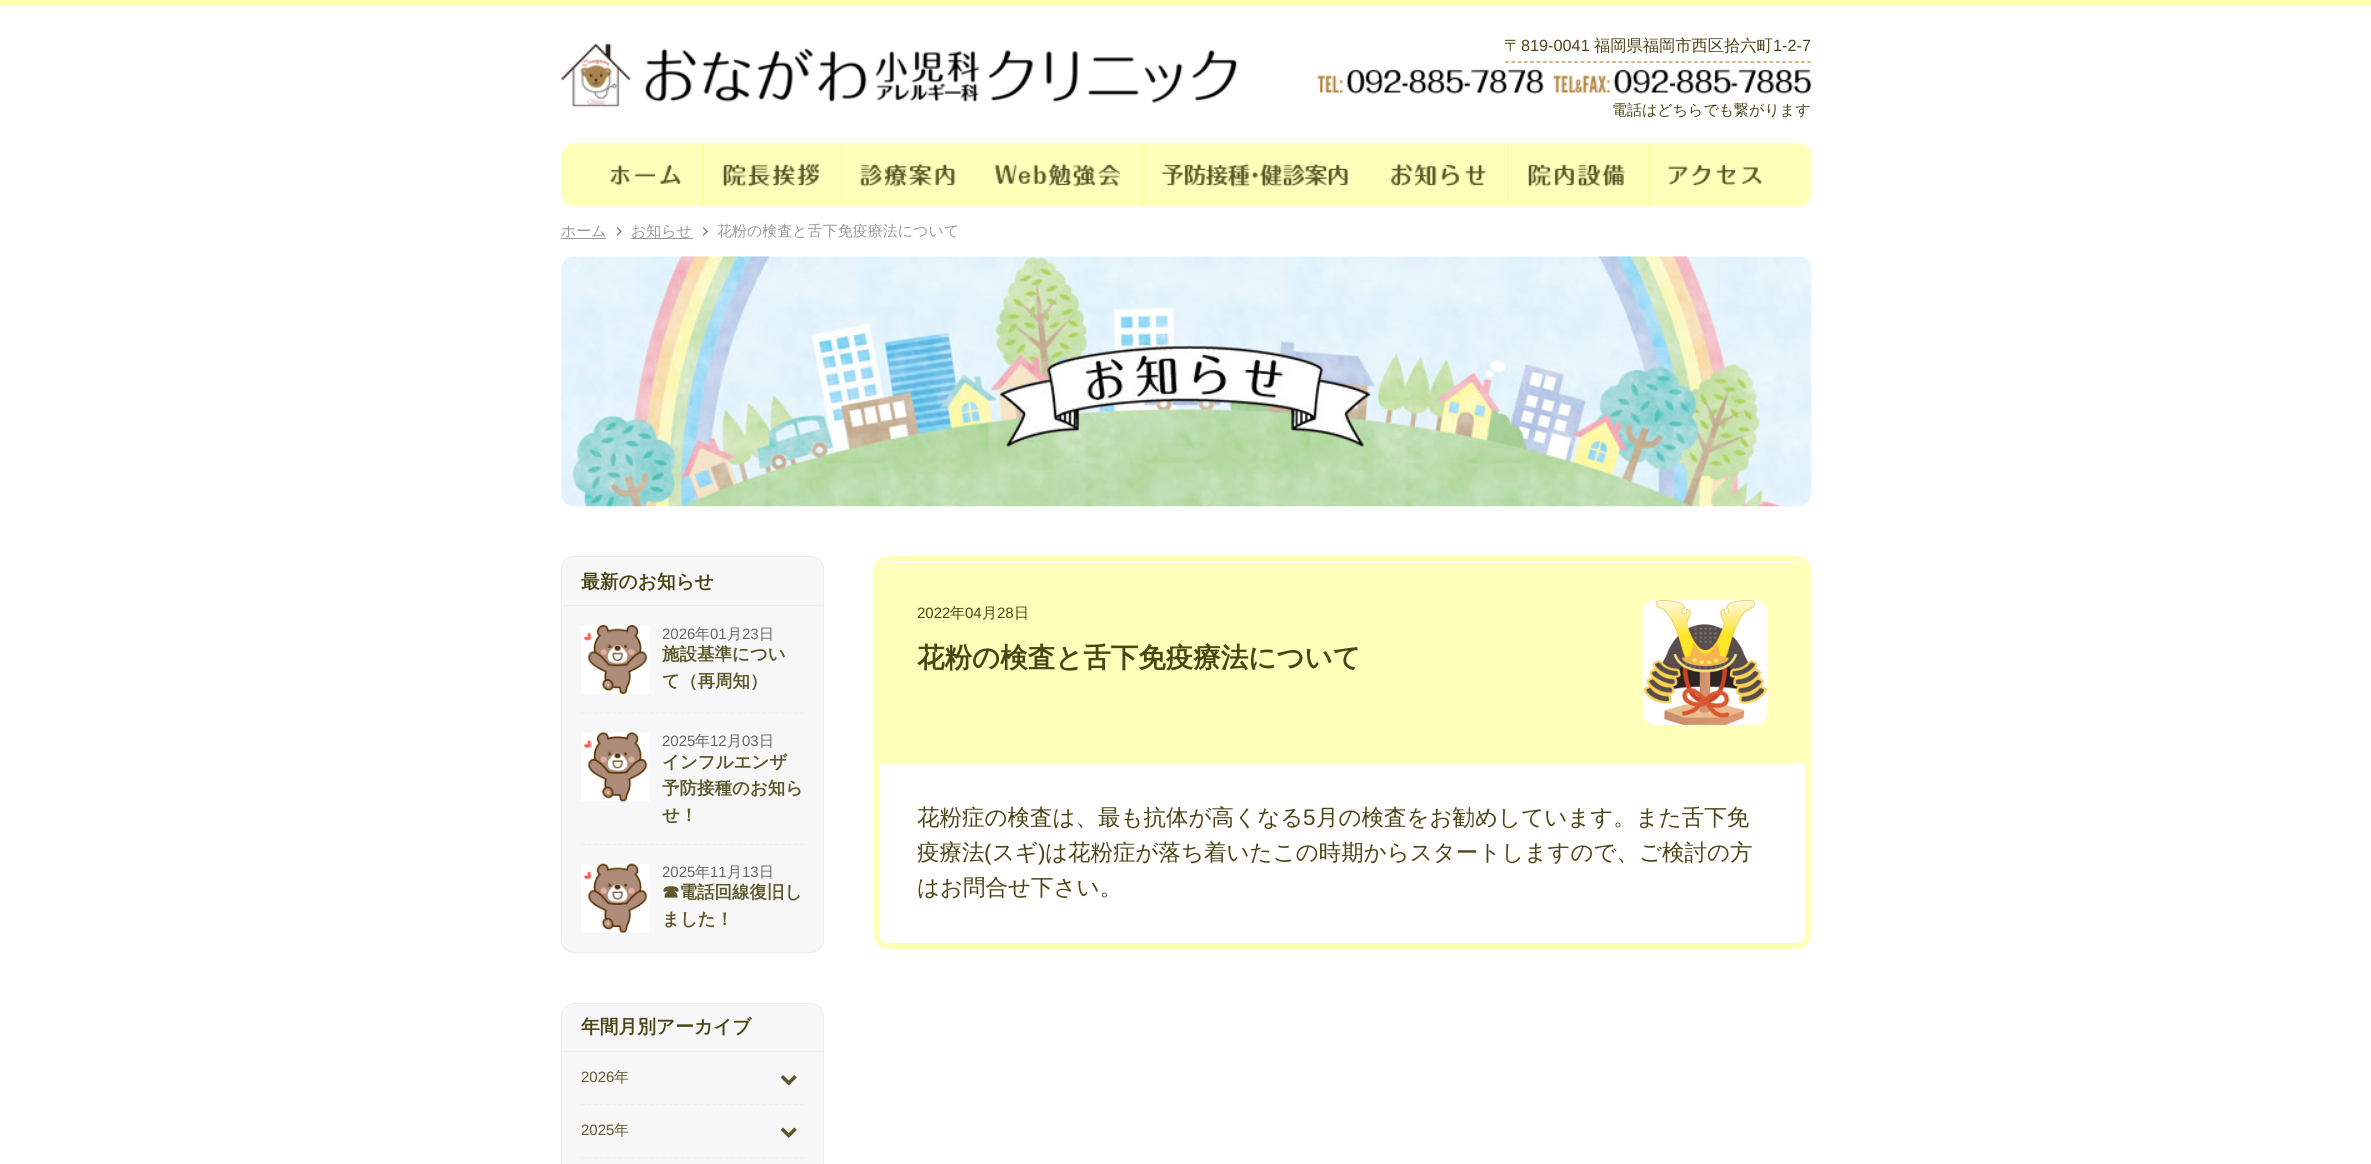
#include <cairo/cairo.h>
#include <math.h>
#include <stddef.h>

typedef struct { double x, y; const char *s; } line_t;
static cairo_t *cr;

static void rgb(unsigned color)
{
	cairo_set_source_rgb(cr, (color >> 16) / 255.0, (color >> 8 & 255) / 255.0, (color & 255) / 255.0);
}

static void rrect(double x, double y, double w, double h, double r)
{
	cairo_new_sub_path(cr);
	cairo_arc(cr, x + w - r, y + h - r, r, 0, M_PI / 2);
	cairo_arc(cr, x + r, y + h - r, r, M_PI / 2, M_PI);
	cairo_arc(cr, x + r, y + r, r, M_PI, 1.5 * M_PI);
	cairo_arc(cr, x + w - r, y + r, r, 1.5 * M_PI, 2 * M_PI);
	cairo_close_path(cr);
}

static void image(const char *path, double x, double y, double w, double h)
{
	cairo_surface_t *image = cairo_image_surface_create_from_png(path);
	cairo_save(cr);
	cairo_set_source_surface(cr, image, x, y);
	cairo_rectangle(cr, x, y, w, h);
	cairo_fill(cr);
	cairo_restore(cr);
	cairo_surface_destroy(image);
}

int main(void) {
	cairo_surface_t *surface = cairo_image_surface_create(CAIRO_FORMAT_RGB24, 2371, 1164);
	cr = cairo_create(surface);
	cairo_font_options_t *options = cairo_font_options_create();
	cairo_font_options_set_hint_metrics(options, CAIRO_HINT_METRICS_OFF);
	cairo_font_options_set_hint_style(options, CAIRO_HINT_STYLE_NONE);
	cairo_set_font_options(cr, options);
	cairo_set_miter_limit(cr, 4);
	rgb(0xffffff);
	cairo_paint(cr);
	rgb(0xfeffb8);
	cairo_rectangle(cr, 0, 0, 2371, 6);
	cairo_fill(cr);
	image("img/1.png", 561, 43, 676, 64);
	cairo_new_path(cr);
	cairo_move_to(cr, 1505, 62);
	cairo_line_to(cr, 1811, 62);
	rgb(0xb48844);
	cairo_set_line_width(cr, 1.2);
	cairo_set_dash(cr, (double[]){3.75, 2.55}, 2, 0);
	cairo_stroke(cr);
	image("img/2.png", 1317, 69, 495, 25);
	image("img/3.png", 561, 143, 1251, 64);
	image("img/4.png", 561, 143, 142, 63);
	image("img/5.png", 702, 143, 140, 63);
	image("img/6.png", 841, 143, 134, 63);
	image("img/7.png", 975, 143, 168, 63);
	image("img/8.png", 1142, 143, 230, 63);
	image("img/9.png", 1371, 143, 137, 63);
	image("img/10.png", 1507, 143, 142, 63);
	image("img/11.png", 1648, 143, 164, 63);
	rgb(0x999999);
	cairo_rectangle(cr, 561, 238, 45, 1);
	cairo_fill(cr);
	image("img/12.png", 616, 227, 6, 9);
	cairo_rectangle(cr, 631, 238, 62, 1);
	cairo_fill(cr);
	image("img/13.png", 702, 227, 6, 9);
	image("img/14.png", 561, 256, 1251, 251);
	rgb(0xf7f7f7);
	rrect(561.5, 556.5, 262, 396, 12.5);
	cairo_fill_preserve(cr);
	rgb(0xeeeeee);
	cairo_set_line_width(cr, 1);
	cairo_set_dash(cr, NULL, 0, 0);
	cairo_stroke(cr);
	cairo_rectangle(cr, 563, 605, 260, 1);
	cairo_fill(cr);
	cairo_new_path(cr);
	cairo_move_to(cr, 581, 713);
	cairo_line_to(cr, 804, 713);
	cairo_set_line_width(cr, 1.2);
	cairo_set_dash(cr, (double[]){3.75, 2.5}, 2, 0);
	cairo_stroke(cr);
	image("img/15.png", 581, 625, 69, 69);
	cairo_new_path(cr);
	cairo_move_to(cr, 581, 844.5);
	cairo_line_to(cr, 804, 844.5);
	cairo_stroke(cr);
	image("img/16.png", 581, 732, 69, 70);
	image("img/17.png", 581, 863, 69, 70);
	rgb(0xf7f7f7);
	rrect(561.5, 1003.5, 262, 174, 12.5);
	cairo_fill_preserve(cr);
	rgb(0xeeeeee);
	cairo_set_line_width(cr, 1);
	cairo_set_dash(cr, NULL, 0, 0);
	cairo_stroke(cr);
	cairo_rectangle(cr, 563, 1051, 260, 1);
	cairo_fill(cr);
	cairo_new_path(cr);
	cairo_move_to(cr, 581, 1104.5);
	cairo_line_to(cr, 804, 1104.5);
	cairo_set_line_width(cr, 1.2);
	cairo_set_dash(cr, (double[]){3.75, 2.5}, 2, 0);
	cairo_stroke(cr);
	image("img/18.png", 780, 1075, 17, 11);
	cairo_new_path(cr);
	cairo_move_to(cr, 581, 1158);
	cairo_line_to(cr, 804, 1158);
	cairo_stroke(cr);
	image("img/19.png", 780, 1127, 17, 11);
	rrect(877, 559, 931, 387, 10);
	rgb(0xfeffb8);
	cairo_set_line_width(cr, 6);
	cairo_set_dash(cr, NULL, 0, 0);
	cairo_stroke(cr);
	cairo_new_path(cr);
	cairo_move_to(cr, 886, 563);
	cairo_line_to(cr, 1799, 563);
	cairo_curve_to(cr, 1802.5, 563, 1805, 565.5, 1805, 569);
	cairo_line_to(cr, 1805, 763);
	cairo_line_to(cr, 880, 763);
	cairo_line_to(cr, 880, 569);
	cairo_curve_to(cr, 880, 565.5, 882.5, 563, 886, 563);
	cairo_close_path(cr);
	cairo_fill(cr);
	image("img/20.png", 1642, 600, 126, 125);
	cairo_select_font_face(cr, "WenQuanYi Zen Hei Medium", CAIRO_FONT_SLANT_NORMAL, CAIRO_FONT_WEIGHT_NORMAL);
	cairo_set_font_size(cr, 16.25);
	rgb(0x4a4515);
	cairo_move_to(cr, 1504, 51);
	cairo_show_text(cr, "〒");
	cairo_select_font_face(cr, "Liberation Sans", CAIRO_FONT_SLANT_NORMAL, CAIRO_FONT_WEIGHT_NORMAL);
	cairo_move_to(cr, 1521, 51);
	cairo_show_text(cr, "819-0041");
	cairo_select_font_face(cr, "WenQuanYi Zen Hei Medium", CAIRO_FONT_SLANT_NORMAL, CAIRO_FONT_WEIGHT_NORMAL);
	cairo_move_to(cr, 1594, 51);
	cairo_show_text(cr, "福岡県福岡市西区拾六町");
	cairo_select_font_face(cr, "Liberation Sans", CAIRO_FONT_SLANT_NORMAL, CAIRO_FONT_WEIGHT_NORMAL);
	cairo_move_to(cr, 1773, 51);
	cairo_show_text(cr, "1-2-7");
	cairo_select_font_face(cr, "WenQuanYi Zen Hei Medium", CAIRO_FONT_SLANT_NORMAL, CAIRO_FONT_WEIGHT_NORMAL);
	cairo_set_font_size(cr, 15);
	cairo_move_to(cr, 1612, 115);
	cairo_show_text(cr, "電話はどちらでも繋がります");
	rgb(0x999999);
	{
		static const line_t items[] = {
			{561, 236, "ホーム"},
			{631, 236, "お知らせ"},
			{717, 236, "花粉の検査と舌下免疫療法について"},
		};
		for (size_t i = 0; i < sizeof items / sizeof *items; i++) {
			cairo_move_to(cr, items[i].x, items[i].y);
			cairo_show_text(cr, items[i].s);
		}
	}
	cairo_select_font_face(cr, "WenQuanYi Zen Hei", CAIRO_FONT_SLANT_NORMAL, CAIRO_FONT_WEIGHT_BOLD);
	cairo_set_font_size(cr, 18.75);
	rgb(0x4a4515);
	cairo_move_to(cr, 581, 588);
	cairo_show_text(cr, "最新のお知らせ");
	cairo_select_font_face(cr, "Liberation Sans", CAIRO_FONT_SLANT_NORMAL, CAIRO_FONT_WEIGHT_NORMAL);
	cairo_set_font_size(cr, 15);
	rgb(0x666666);
	cairo_move_to(cr, 662, 639);
	cairo_show_text(cr, "2026");
	cairo_select_font_face(cr, "WenQuanYi Zen Hei Medium", CAIRO_FONT_SLANT_NORMAL, CAIRO_FONT_WEIGHT_NORMAL);
	cairo_move_to(cr, 695, 639);
	cairo_show_text(cr, "年");
	cairo_select_font_face(cr, "Liberation Sans", CAIRO_FONT_SLANT_NORMAL, CAIRO_FONT_WEIGHT_NORMAL);
	cairo_move_to(cr, 710, 639);
	cairo_show_text(cr, "01");
	cairo_select_font_face(cr, "WenQuanYi Zen Hei Medium", CAIRO_FONT_SLANT_NORMAL, CAIRO_FONT_WEIGHT_NORMAL);
	cairo_move_to(cr, 727, 639);
	cairo_show_text(cr, "月");
	cairo_select_font_face(cr, "Liberation Sans", CAIRO_FONT_SLANT_NORMAL, CAIRO_FONT_WEIGHT_NORMAL);
	cairo_move_to(cr, 742, 639);
	cairo_show_text(cr, "23");
	cairo_select_font_face(cr, "WenQuanYi Zen Hei Medium", CAIRO_FONT_SLANT_NORMAL, CAIRO_FONT_WEIGHT_NORMAL);
	cairo_move_to(cr, 759, 639);
	cairo_show_text(cr, "日");
	cairo_select_font_face(cr, "WenQuanYi Zen Hei", CAIRO_FONT_SLANT_NORMAL, CAIRO_FONT_WEIGHT_BOLD);
	cairo_set_font_size(cr, 17.5);
	rgb(0x5c5729);
	cairo_move_to(cr, 662, 660);
	cairo_show_text(cr, "施設基準につい");
	cairo_move_to(cr, 662, 687);
	cairo_show_text(cr, "て（再周知）");
	cairo_select_font_face(cr, "Liberation Sans", CAIRO_FONT_SLANT_NORMAL, CAIRO_FONT_WEIGHT_NORMAL);
	cairo_set_font_size(cr, 15);
	rgb(0x666666);
	cairo_move_to(cr, 662, 746);
	cairo_show_text(cr, "2025");
	cairo_select_font_face(cr, "WenQuanYi Zen Hei Medium", CAIRO_FONT_SLANT_NORMAL, CAIRO_FONT_WEIGHT_NORMAL);
	cairo_move_to(cr, 695, 746);
	cairo_show_text(cr, "年");
	cairo_select_font_face(cr, "Liberation Sans", CAIRO_FONT_SLANT_NORMAL, CAIRO_FONT_WEIGHT_NORMAL);
	cairo_move_to(cr, 710, 746);
	cairo_show_text(cr, "12");
	cairo_select_font_face(cr, "WenQuanYi Zen Hei Medium", CAIRO_FONT_SLANT_NORMAL, CAIRO_FONT_WEIGHT_NORMAL);
	cairo_move_to(cr, 727, 746);
	cairo_show_text(cr, "月");
	cairo_select_font_face(cr, "Liberation Sans", CAIRO_FONT_SLANT_NORMAL, CAIRO_FONT_WEIGHT_NORMAL);
	cairo_move_to(cr, 742, 746);
	cairo_show_text(cr, "03");
	cairo_select_font_face(cr, "WenQuanYi Zen Hei Medium", CAIRO_FONT_SLANT_NORMAL, CAIRO_FONT_WEIGHT_NORMAL);
	cairo_move_to(cr, 759, 746);
	cairo_show_text(cr, "日");
	cairo_select_font_face(cr, "WenQuanYi Zen Hei", CAIRO_FONT_SLANT_NORMAL, CAIRO_FONT_WEIGHT_BOLD);
	cairo_set_font_size(cr, 17.5);
	rgb(0x5c5729);
	{
		static const line_t items[] = {
			{662, 768, "インフルエンザ"},
			{662, 794, "予防接種のお知ら"},
			{662, 821, "せ！"},
		};
		for (size_t i = 0; i < sizeof items / sizeof *items; i++) {
			cairo_move_to(cr, items[i].x, items[i].y);
			cairo_show_text(cr, items[i].s);
		}
	}
	cairo_select_font_face(cr, "Liberation Sans", CAIRO_FONT_SLANT_NORMAL, CAIRO_FONT_WEIGHT_NORMAL);
	cairo_set_font_size(cr, 15);
	rgb(0x666666);
	cairo_move_to(cr, 662, 877);
	cairo_show_text(cr, "2025");
	cairo_select_font_face(cr, "WenQuanYi Zen Hei Medium", CAIRO_FONT_SLANT_NORMAL, CAIRO_FONT_WEIGHT_NORMAL);
	cairo_move_to(cr, 695, 877);
	cairo_show_text(cr, "年");
	cairo_select_font_face(cr, "Liberation Sans", CAIRO_FONT_SLANT_NORMAL, CAIRO_FONT_WEIGHT_NORMAL);
	cairo_move_to(cr, 710, 877);
	cairo_show_text(cr, "11");
	cairo_select_font_face(cr, "WenQuanYi Zen Hei Medium", CAIRO_FONT_SLANT_NORMAL, CAIRO_FONT_WEIGHT_NORMAL);
	cairo_move_to(cr, 727, 877);
	cairo_show_text(cr, "月");
	cairo_select_font_face(cr, "Liberation Sans", CAIRO_FONT_SLANT_NORMAL, CAIRO_FONT_WEIGHT_NORMAL);
	cairo_move_to(cr, 742, 877);
	cairo_show_text(cr, "13");
	cairo_select_font_face(cr, "WenQuanYi Zen Hei Medium", CAIRO_FONT_SLANT_NORMAL, CAIRO_FONT_WEIGHT_NORMAL);
	cairo_move_to(cr, 759, 877);
	cairo_show_text(cr, "日");
	cairo_select_font_face(cr, "WenQuanYi Zen Hei", CAIRO_FONT_SLANT_NORMAL, CAIRO_FONT_WEIGHT_BOLD);
	cairo_set_font_size(cr, 17.5);
	rgb(0x5c5729);
	cairo_move_to(cr, 662, 898);
	cairo_show_text(cr, "☎電話回線復旧し");
	cairo_move_to(cr, 662, 925);
	cairo_show_text(cr, "ました！");
	cairo_set_font_size(cr, 18.75);
	rgb(0x4a4515);
	cairo_move_to(cr, 581, 1033);
	cairo_show_text(cr, "年間月別アーカイブ");
	cairo_select_font_face(cr, "Liberation Sans", CAIRO_FONT_SLANT_NORMAL, CAIRO_FONT_WEIGHT_NORMAL);
	cairo_set_font_size(cr, 15);
	rgb(0x5c5729);
	cairo_move_to(cr, 581, 1082);
	cairo_show_text(cr, "2026");
	cairo_select_font_face(cr, "WenQuanYi Zen Hei Medium", CAIRO_FONT_SLANT_NORMAL, CAIRO_FONT_WEIGHT_NORMAL);
	cairo_move_to(cr, 614, 1082);
	cairo_show_text(cr, "年");
	cairo_select_font_face(cr, "Liberation Sans", CAIRO_FONT_SLANT_NORMAL, CAIRO_FONT_WEIGHT_NORMAL);
	cairo_move_to(cr, 581, 1135);
	cairo_show_text(cr, "2025");
	cairo_select_font_face(cr, "WenQuanYi Zen Hei Medium", CAIRO_FONT_SLANT_NORMAL, CAIRO_FONT_WEIGHT_NORMAL);
	cairo_move_to(cr, 614, 1135);
	cairo_show_text(cr, "年");
	cairo_select_font_face(cr, "Liberation Sans", CAIRO_FONT_SLANT_NORMAL, CAIRO_FONT_WEIGHT_NORMAL);
	rgb(0x4a4515);
	cairo_move_to(cr, 917, 618);
	cairo_show_text(cr, "2022");
	cairo_select_font_face(cr, "WenQuanYi Zen Hei Medium", CAIRO_FONT_SLANT_NORMAL, CAIRO_FONT_WEIGHT_NORMAL);
	cairo_move_to(cr, 950, 618);
	cairo_show_text(cr, "年");
	cairo_select_font_face(cr, "Liberation Sans", CAIRO_FONT_SLANT_NORMAL, CAIRO_FONT_WEIGHT_NORMAL);
	cairo_move_to(cr, 965, 618);
	cairo_show_text(cr, "04");
	cairo_select_font_face(cr, "WenQuanYi Zen Hei Medium", CAIRO_FONT_SLANT_NORMAL, CAIRO_FONT_WEIGHT_NORMAL);
	cairo_move_to(cr, 982, 618);
	cairo_show_text(cr, "月");
	cairo_select_font_face(cr, "Liberation Sans", CAIRO_FONT_SLANT_NORMAL, CAIRO_FONT_WEIGHT_NORMAL);
	cairo_move_to(cr, 997, 618);
	cairo_show_text(cr, "28");
	cairo_select_font_face(cr, "WenQuanYi Zen Hei Medium", CAIRO_FONT_SLANT_NORMAL, CAIRO_FONT_WEIGHT_NORMAL);
	cairo_move_to(cr, 1014, 618);
	cairo_show_text(cr, "日");
	cairo_select_font_face(cr, "WenQuanYi Zen Hei", CAIRO_FONT_SLANT_NORMAL, CAIRO_FONT_WEIGHT_BOLD);
	cairo_set_font_size(cr, 27.5);
	cairo_move_to(cr, 917, 667);
	cairo_show_text(cr, "花粉の検査と舌下免疫療法について");
	cairo_select_font_face(cr, "WenQuanYi Zen Hei Medium", CAIRO_FONT_SLANT_NORMAL, CAIRO_FONT_WEIGHT_NORMAL);
	cairo_set_font_size(cr, 22.5);
	cairo_move_to(cr, 917, 825);
	cairo_show_text(cr, "花粉症の検査は、最も抗体が高くなる");
	cairo_select_font_face(cr, "Liberation Sans", CAIRO_FONT_SLANT_NORMAL, CAIRO_FONT_WEIGHT_NORMAL);
	cairo_move_to(cr, 1303, 825);
	cairo_show_text(cr, "5");
	cairo_select_font_face(cr, "WenQuanYi Zen Hei Medium", CAIRO_FONT_SLANT_NORMAL, CAIRO_FONT_WEIGHT_NORMAL);
	cairo_move_to(cr, 1316, 825);
	cairo_show_text(cr, "月の検査をお勧めしています。また舌下免");
	cairo_move_to(cr, 917, 860);
	cairo_show_text(cr, "疫療法");
	cairo_select_font_face(cr, "Liberation Sans", CAIRO_FONT_SLANT_NORMAL, CAIRO_FONT_WEIGHT_NORMAL);
	cairo_move_to(cr, 984, 860);
	cairo_show_text(cr, "(");
	cairo_select_font_face(cr, "WenQuanYi Zen Hei Medium", CAIRO_FONT_SLANT_NORMAL, CAIRO_FONT_WEIGHT_NORMAL);
	cairo_move_to(cr, 992, 860);
	cairo_show_text(cr, "スギ");
	cairo_select_font_face(cr, "Liberation Sans", CAIRO_FONT_SLANT_NORMAL, CAIRO_FONT_WEIGHT_NORMAL);
	cairo_move_to(cr, 1038, 860);
	cairo_show_text(cr, ")");
	cairo_select_font_face(cr, "WenQuanYi Zen Hei Medium", CAIRO_FONT_SLANT_NORMAL, CAIRO_FONT_WEIGHT_NORMAL);
	cairo_move_to(cr, 1045, 860);
	cairo_show_text(cr, "は花粉症が落ち着いたこの時期からスタートしますので、ご検討の方");
	cairo_move_to(cr, 917, 895);
	cairo_show_text(cr, "はお問合せ下さい。");
	cairo_surface_write_to_png(surface, "page.png");
	cairo_font_options_destroy(options);
	cairo_destroy(cr);
	cairo_surface_destroy(surface);
	return 0;
}
